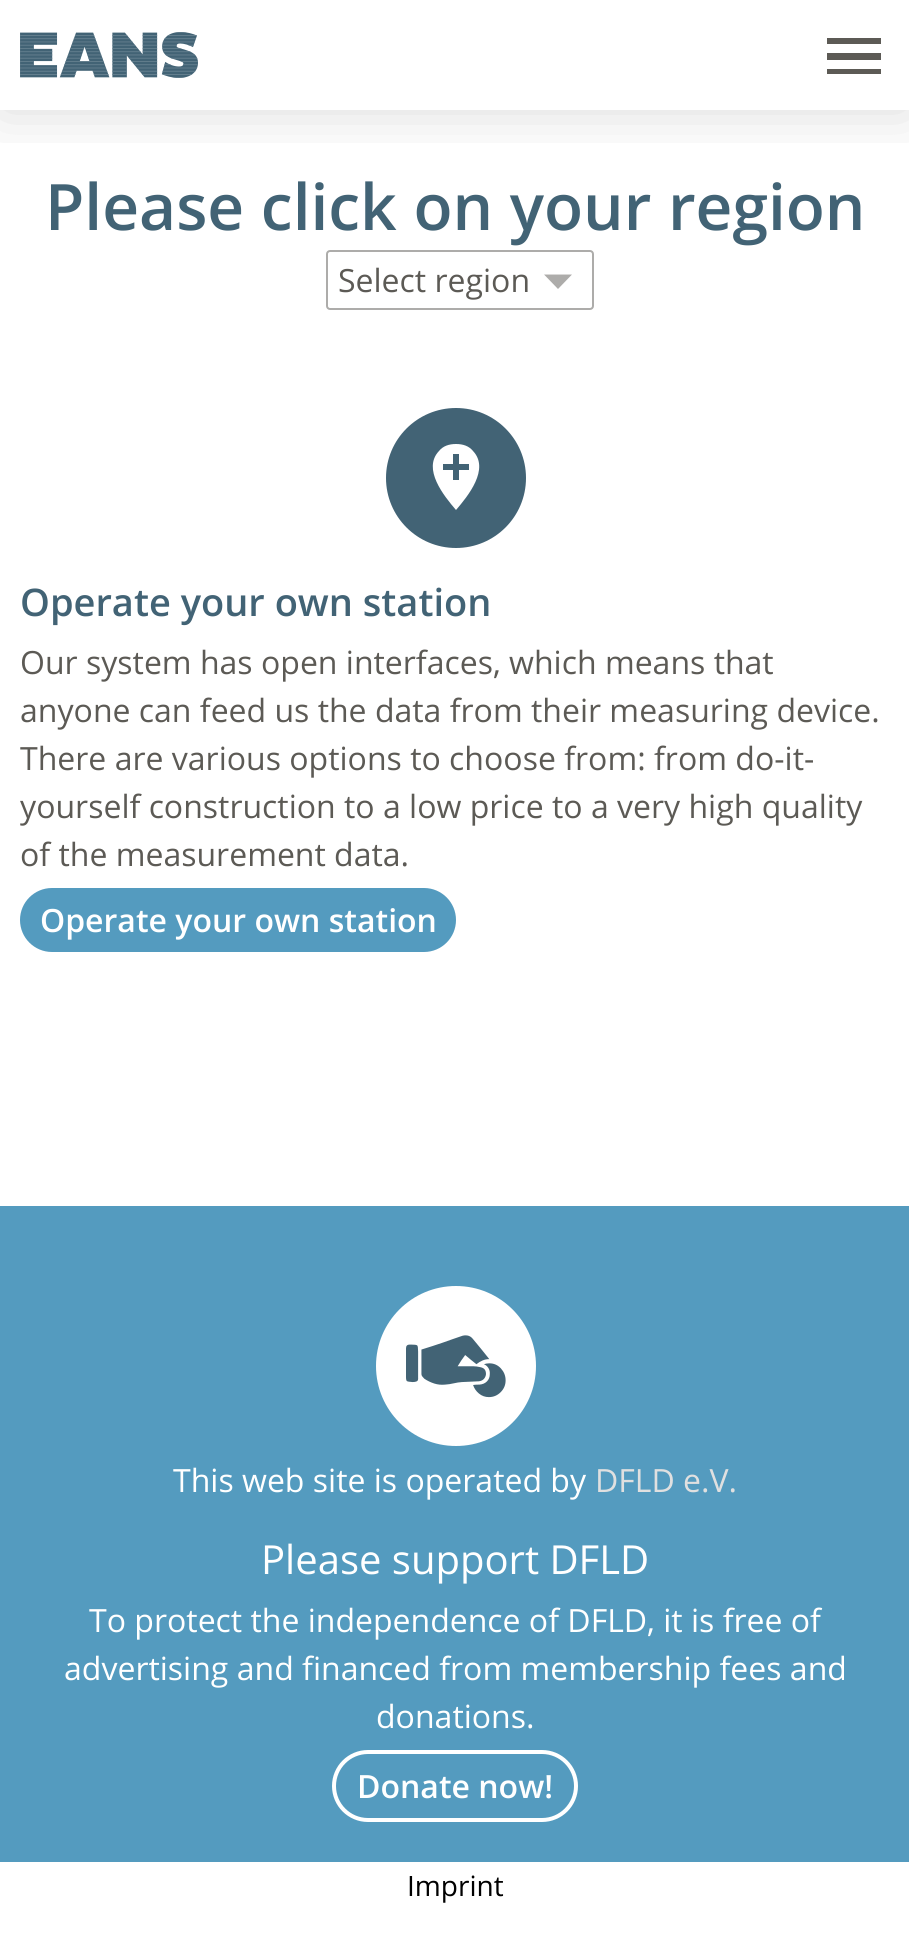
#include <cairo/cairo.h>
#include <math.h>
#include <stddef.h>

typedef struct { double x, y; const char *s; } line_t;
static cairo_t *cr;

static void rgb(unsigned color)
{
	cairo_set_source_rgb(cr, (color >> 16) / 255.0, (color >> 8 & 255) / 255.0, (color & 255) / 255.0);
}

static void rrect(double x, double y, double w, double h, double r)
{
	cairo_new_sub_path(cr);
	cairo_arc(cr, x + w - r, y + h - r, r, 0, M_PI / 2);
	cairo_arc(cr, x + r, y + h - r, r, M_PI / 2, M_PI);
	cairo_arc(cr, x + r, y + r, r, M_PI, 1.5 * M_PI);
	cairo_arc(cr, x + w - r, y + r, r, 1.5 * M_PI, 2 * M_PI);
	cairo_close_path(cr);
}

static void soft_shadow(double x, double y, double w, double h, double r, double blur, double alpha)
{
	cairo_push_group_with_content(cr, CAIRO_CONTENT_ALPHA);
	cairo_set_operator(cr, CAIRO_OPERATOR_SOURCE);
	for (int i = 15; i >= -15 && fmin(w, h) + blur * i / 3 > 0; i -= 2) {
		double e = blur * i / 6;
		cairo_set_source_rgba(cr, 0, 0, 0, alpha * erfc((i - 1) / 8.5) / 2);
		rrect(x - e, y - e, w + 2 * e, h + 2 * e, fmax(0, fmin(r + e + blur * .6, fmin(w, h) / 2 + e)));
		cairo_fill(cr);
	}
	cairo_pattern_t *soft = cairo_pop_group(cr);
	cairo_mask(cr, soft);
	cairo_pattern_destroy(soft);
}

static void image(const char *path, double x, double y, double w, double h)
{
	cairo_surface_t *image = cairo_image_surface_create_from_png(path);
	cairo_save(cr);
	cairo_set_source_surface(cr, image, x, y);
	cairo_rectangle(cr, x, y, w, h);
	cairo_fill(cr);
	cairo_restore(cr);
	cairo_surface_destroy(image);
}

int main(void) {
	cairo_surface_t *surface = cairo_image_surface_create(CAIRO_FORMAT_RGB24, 909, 1940);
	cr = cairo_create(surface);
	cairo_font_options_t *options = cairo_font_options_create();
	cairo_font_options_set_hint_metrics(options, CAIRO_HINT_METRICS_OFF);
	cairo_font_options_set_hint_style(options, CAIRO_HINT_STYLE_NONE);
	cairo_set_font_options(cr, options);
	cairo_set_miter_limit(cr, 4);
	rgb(0xffffff);
	cairo_paint(cr);
	cairo_save(cr);
	cairo_rectangle(cr, 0, 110, 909, 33);
	cairo_clip(cr);
	rgb(0x000000);
	soft_shadow(0, 0, 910, 110, 0, 30, 0.15);
	cairo_restore(cr);
	image("img/1.png", 20, 32, 178, 46);
	rgb(0x5c5a55);
	cairo_new_path(cr);
	cairo_move_to(cr, 827, 74);
	cairo_line_to(cr, 881, 74);
	cairo_line_to(cr, 881, 69);
	cairo_line_to(cr, 827, 69);
	cairo_close_path(cr);
	cairo_move_to(cr, 827, 60);
	cairo_line_to(cr, 881, 60);
	cairo_line_to(cr, 881, 53);
	cairo_line_to(cr, 827, 53);
	cairo_close_path(cr);
	cairo_move_to(cr, 827, 38);
	cairo_line_to(cr, 827, 44);
	cairo_line_to(cr, 881, 44);
	cairo_line_to(cr, 881, 38);
	cairo_close_path(cr);
	cairo_fill(cr);
	rrect(327, 251, 266, 58, 3);
	rgb(0xadacaa);
	cairo_stroke(cr);
	cairo_new_path(cr);
	cairo_move_to(cr, 544, 274.5);
	cairo_line_to(cr, 558, 289);
	cairo_line_to(cr, 572, 274.5);
	cairo_close_path(cr);
	cairo_fill(cr);
	rgb(0x426375);
	cairo_arc(cr, 456, 478, 70, 0, 2 * M_PI);
	cairo_fill(cr);
	rgb(0xffffff);
	cairo_new_path(cr);
	cairo_move_to(cr, 456, 444);
	cairo_curve_to(cr, 449, 444, 443, 446, 439, 451);
	cairo_curve_to(cr, 422, 469, 444, 496, 456, 510);
	cairo_curve_to(cr, 468, 496, 490, 469, 473, 451);
	cairo_curve_to(cr, 469, 446, 463, 444, 456, 444);
	cairo_close_path(cr);
	cairo_move_to(cr, 469, 470);
	cairo_line_to(cr, 459, 470);
	cairo_line_to(cr, 459, 480);
	cairo_line_to(cr, 453, 480);
	cairo_line_to(cr, 453, 470);
	cairo_line_to(cr, 443, 470);
	cairo_line_to(cr, 443, 464);
	cairo_line_to(cr, 453, 464);
	cairo_line_to(cr, 453, 454);
	cairo_line_to(cr, 459, 454);
	cairo_line_to(cr, 459, 464);
	cairo_line_to(cr, 469, 464);
	cairo_close_path(cr);
	cairo_fill(cr);
	rgb(0x549bbf);
	rrect(20, 888, 436, 64, 32);
	cairo_fill(cr);
	cairo_rectangle(cr, 0, 1206, 909, 656);
	cairo_fill(cr);
	rgb(0xffffff);
	cairo_arc(cr, 456, 1366, 80, 0, 2 * M_PI);
	cairo_fill(cr);
	image("img/2.png", 406, 1335, 100, 63);
	rrect(334, 1752, 242, 68, 34);
	cairo_set_line_width(cr, 4);
	cairo_stroke(cr);
	cairo_select_font_face(cr, "Open Sans SemiBold", CAIRO_FONT_SLANT_NORMAL, CAIRO_FONT_WEIGHT_NORMAL);
	cairo_set_font_size(cr, 64);
	rgb(0x426375);
	cairo_move_to(cr, 45, 230);
	cairo_show_text(cr, "Please click on your region");
	cairo_select_font_face(cr, "Open Sans", CAIRO_FONT_SLANT_NORMAL, CAIRO_FONT_WEIGHT_NORMAL);
	cairo_set_font_size(cr, 32);
	rgb(0x5c5a55);
	cairo_move_to(cr, 338, 292);
	cairo_show_text(cr, "Select region");
	cairo_select_font_face(cr, "Open Sans SemiBold", CAIRO_FONT_SLANT_NORMAL, CAIRO_FONT_WEIGHT_NORMAL);
	cairo_set_font_size(cr, 38);
	rgb(0x426375);
	cairo_move_to(cr, 20, 616);
	cairo_show_text(cr, "Operate your own station");
	cairo_select_font_face(cr, "Open Sans", CAIRO_FONT_SLANT_NORMAL, CAIRO_FONT_WEIGHT_NORMAL);
	cairo_set_font_size(cr, 32);
	rgb(0x5c5a55);
	{
		static const line_t items[] = {
			{20, 674, "Our system has open interfaces, which means that"},
			{20, 722, "anyone can feed us the data from their measuring device."},
			{20, 770, "There are various options to choose from: from do-it-"},
			{20, 818, "yourself construction to a low price to a very high quality"},
			{20, 866, "of the measurement data."},
		};
		for (size_t i = 0; i < sizeof items / sizeof *items; i++) {
			cairo_move_to(cr, items[i].x, items[i].y);
			cairo_show_text(cr, items[i].s);
		}
	}
	cairo_select_font_face(cr, "Open Sans SemiBold", CAIRO_FONT_SLANT_NORMAL, CAIRO_FONT_WEIGHT_NORMAL);
	rgb(0xffffff);
	cairo_move_to(cr, 40, 932);
	cairo_show_text(cr, "Operate your own station");
	cairo_select_font_face(cr, "Open Sans", CAIRO_FONT_SLANT_NORMAL, CAIRO_FONT_WEIGHT_NORMAL);
	cairo_move_to(cr, 173, 1492);
	cairo_show_text(cr, "This web site is operated by");
	rgb(0xe0e0e0);
	cairo_move_to(cr, 595, 1492);
	cairo_show_text(cr, "DFLD e.V.");
	cairo_set_font_size(cr, 40);
	rgb(0xffffff);
	cairo_move_to(cr, 261, 1574);
	cairo_show_text(cr, "Please support DFLD");
	cairo_set_font_size(cr, 32);
	{
		static const line_t items[] = {
			{89, 1632, "To protect the independence of DFLD, it is free of"},
			{64, 1680, "advertising and financed from membership fees and"},
			{376, 1728, "donations."},
		};
		for (size_t i = 0; i < sizeof items / sizeof *items; i++) {
			cairo_move_to(cr, items[i].x, items[i].y);
			cairo_show_text(cr, items[i].s);
		}
	}
	cairo_select_font_face(cr, "Open Sans SemiBold", CAIRO_FONT_SLANT_NORMAL, CAIRO_FONT_WEIGHT_NORMAL);
	cairo_move_to(cr, 357, 1798);
	cairo_show_text(cr, "Donate now!");
	cairo_select_font_face(cr, "Open Sans", CAIRO_FONT_SLANT_NORMAL, CAIRO_FONT_WEIGHT_NORMAL);
	cairo_set_font_size(cr, 28);
	rgb(0x000000);
	cairo_move_to(cr, 407, 1896);
	cairo_show_text(cr, "Imprint");
	cairo_surface_write_to_png(surface, "page.png");
	cairo_font_options_destroy(options);
	cairo_destroy(cr);
	cairo_surface_destroy(surface);
	return 0;
}
